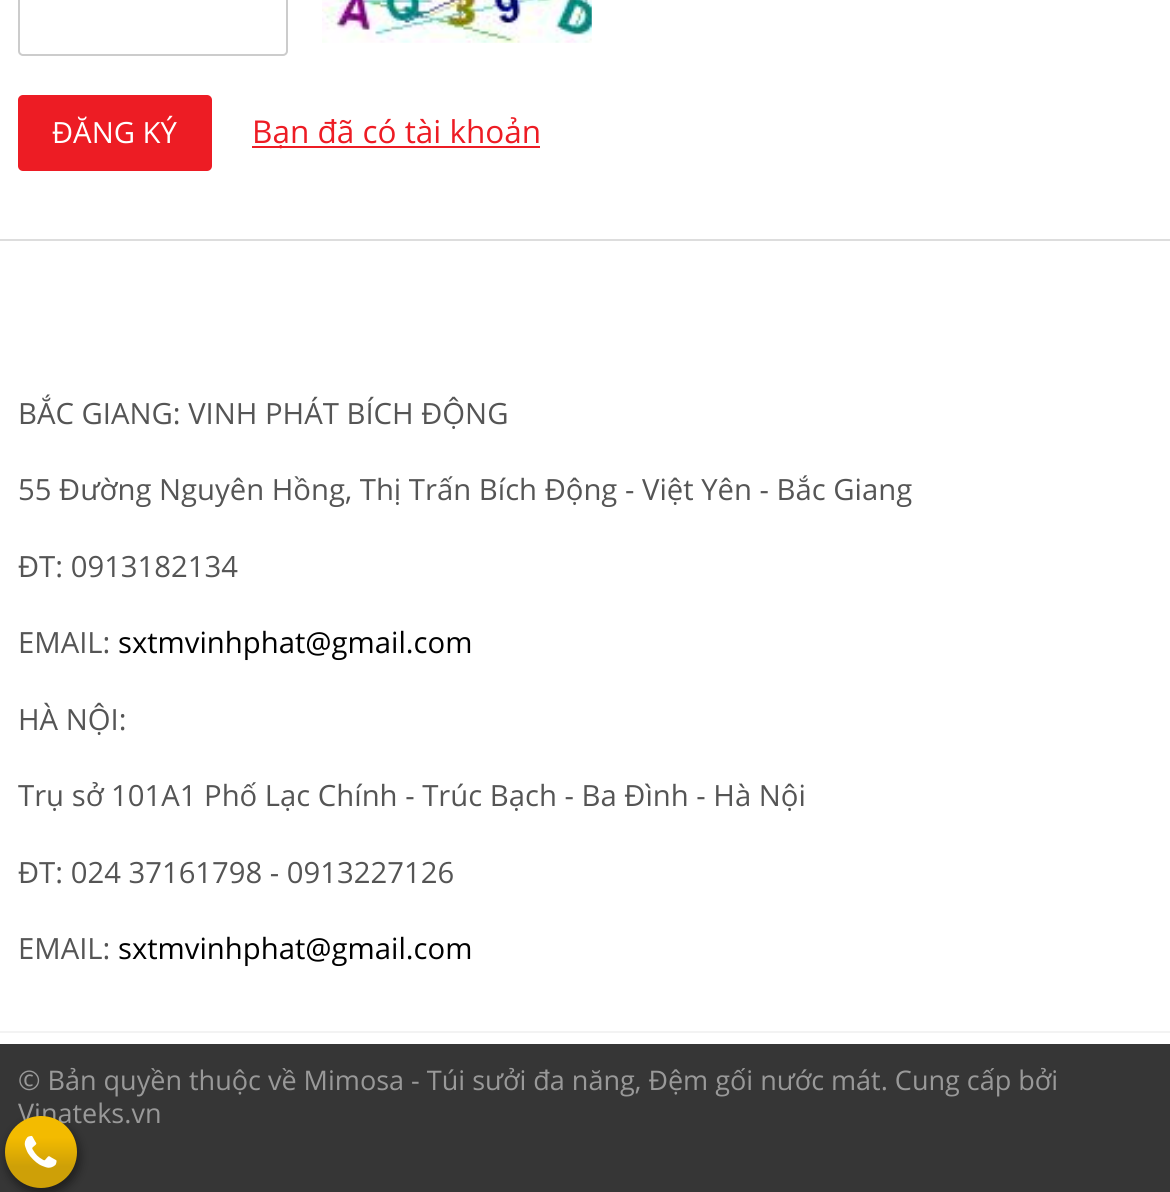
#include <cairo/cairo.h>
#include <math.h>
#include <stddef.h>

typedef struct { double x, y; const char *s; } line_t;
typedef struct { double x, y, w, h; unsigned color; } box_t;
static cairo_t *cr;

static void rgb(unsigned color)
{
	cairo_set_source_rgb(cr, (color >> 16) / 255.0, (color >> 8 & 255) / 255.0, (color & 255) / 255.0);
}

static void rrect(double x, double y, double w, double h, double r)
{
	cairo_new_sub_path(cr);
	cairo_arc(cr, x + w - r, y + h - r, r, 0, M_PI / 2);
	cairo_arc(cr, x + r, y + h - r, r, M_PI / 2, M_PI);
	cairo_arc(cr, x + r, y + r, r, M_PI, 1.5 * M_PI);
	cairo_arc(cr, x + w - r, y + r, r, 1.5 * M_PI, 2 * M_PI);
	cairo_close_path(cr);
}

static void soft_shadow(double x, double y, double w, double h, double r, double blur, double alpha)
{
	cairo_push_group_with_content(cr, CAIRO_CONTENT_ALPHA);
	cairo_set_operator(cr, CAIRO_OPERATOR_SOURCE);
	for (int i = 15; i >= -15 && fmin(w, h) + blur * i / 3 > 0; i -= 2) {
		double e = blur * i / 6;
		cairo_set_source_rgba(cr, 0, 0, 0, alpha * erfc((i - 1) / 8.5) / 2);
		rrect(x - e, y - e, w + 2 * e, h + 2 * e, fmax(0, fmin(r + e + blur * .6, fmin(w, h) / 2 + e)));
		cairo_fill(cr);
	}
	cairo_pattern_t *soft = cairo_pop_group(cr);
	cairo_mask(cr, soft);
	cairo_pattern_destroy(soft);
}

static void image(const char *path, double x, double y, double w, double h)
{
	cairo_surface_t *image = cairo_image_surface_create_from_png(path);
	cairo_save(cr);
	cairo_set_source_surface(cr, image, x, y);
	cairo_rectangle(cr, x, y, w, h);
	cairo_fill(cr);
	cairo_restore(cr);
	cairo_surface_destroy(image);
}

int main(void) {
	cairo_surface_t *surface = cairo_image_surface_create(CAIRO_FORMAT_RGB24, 1170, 1192);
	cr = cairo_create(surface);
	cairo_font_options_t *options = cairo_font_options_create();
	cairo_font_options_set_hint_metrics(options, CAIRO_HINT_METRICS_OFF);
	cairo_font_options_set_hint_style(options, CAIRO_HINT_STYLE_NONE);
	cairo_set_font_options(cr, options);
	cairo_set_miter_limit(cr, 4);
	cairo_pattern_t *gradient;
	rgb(0xffffff);
	cairo_paint(cr);
	rrect(19, -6, 268, 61, 4);
	rgb(0xcccccc);
	cairo_stroke(cr);
	image("img/1.png", 322, 0, 270, 43);
	rgb(0xed1c24);
	rrect(18, 95, 194, 76, 5);
	cairo_fill(cr);
	{
		static const box_t items[] = {
			{252, 146, 288, 2, 0xed1c24},
			{0, 239, 1170, 2, 0xdddddd},
			{0, 1031, 1170, 2, 0xf3f3f3},
			{0, 1044, 1170, 148, 0x363636},
		};
		for (size_t i = 0; i < sizeof items / sizeof *items; i++) {
			rgb(items[i].color);
			cairo_rectangle(cr, items[i].x, items[i].y, items[i].w, items[i].h);
			cairo_fill(cr);
		}
	}
	rgb(0x000000);
	soft_shadow(7, 1121, 72, 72, 36, 5.5, 0.5);
	cairo_select_font_face(cr, "Open Sans", CAIRO_FONT_SLANT_NORMAL, CAIRO_FONT_WEIGHT_NORMAL);
	cairo_set_font_size(cr, 29.25);
	rgb(0xffffff);
	cairo_move_to(cr, 52, 143);
	cairo_show_text(cr, "ĐĂNG KÝ");
	cairo_set_font_size(cr, 31.5);
	rgb(0xed1c24);
	cairo_move_to(cr, 252, 143);
	cairo_show_text(cr, "Bạn đã có tài khoản");
	cairo_set_font_size(cr, 29.25);
	rgb(0x555555);
	{
		static const line_t items[] = {
			{18, 424, "BẮC GIANG: VINH PHÁT BÍCH ĐỘNG"},
			{18, 500, "55 Đường Nguyên Hồng, Thị Trấn Bích Động - Việt Yên - Bắc Giang"},
			{18, 577, "ĐT: 0913182134"},
			{18, 653, "EMAIL:"},
		};
		for (size_t i = 0; i < sizeof items / sizeof *items; i++) {
			cairo_move_to(cr, items[i].x, items[i].y);
			cairo_show_text(cr, items[i].s);
		}
	}
	rgb(0x000000);
	cairo_move_to(cr, 118, 653);
	cairo_show_text(cr, "sxtmvinhphat@gmail.com");
	rgb(0x555555);
	{
		static const line_t items[] = {
			{18, 730, "HÀ NỘI:"},
			{18, 806, "Trụ sở 101A1 Phố Lạc Chính - Trúc Bạch - Ba Đình - Hà Nội"},
			{18, 883, "ĐT: 024 37161798 - 0913227126"},
			{18, 959, "EMAIL:"},
		};
		for (size_t i = 0; i < sizeof items / sizeof *items; i++) {
			cairo_move_to(cr, items[i].x, items[i].y);
			cairo_show_text(cr, items[i].s);
		}
	}
	rgb(0x000000);
	cairo_move_to(cr, 118, 959);
	cairo_show_text(cr, "sxtmvinhphat@gmail.com");
	cairo_set_font_size(cr, 27);
	rgb(0x999999);
	cairo_move_to(cr, 18, 1090);
	cairo_show_text(cr, "© Bản quyền thuộc về Mimosa - Túi sưởi đa năng, Đệm gối nước mát. Cung cấp bởi");
	cairo_move_to(cr, 18, 1123);
	cairo_show_text(cr, "Vinateks.vn");
	gradient = cairo_pattern_create_linear(4.5, 1116, 4.5, 1188);
	cairo_pattern_add_color_stop_rgba(gradient, 0.3, 0.953, 0.733, 0, 1);
	cairo_pattern_add_color_stop_rgba(gradient, 0.7, 0.808, 0.627, 0.027, 1);
	cairo_set_source(cr, gradient);
	cairo_pattern_destroy(gradient);
	cairo_new_path(cr);
	cairo_arc(cr, 41, 1152, 36, 0, 2 * M_PI);
	cairo_fill(cr);
	image("img/2.png", 24, 1135, 33, 33);
	cairo_surface_write_to_png(surface, "page.png");
	cairo_font_options_destroy(options);
	cairo_destroy(cr);
	cairo_surface_destroy(surface);
	return 0;
}
